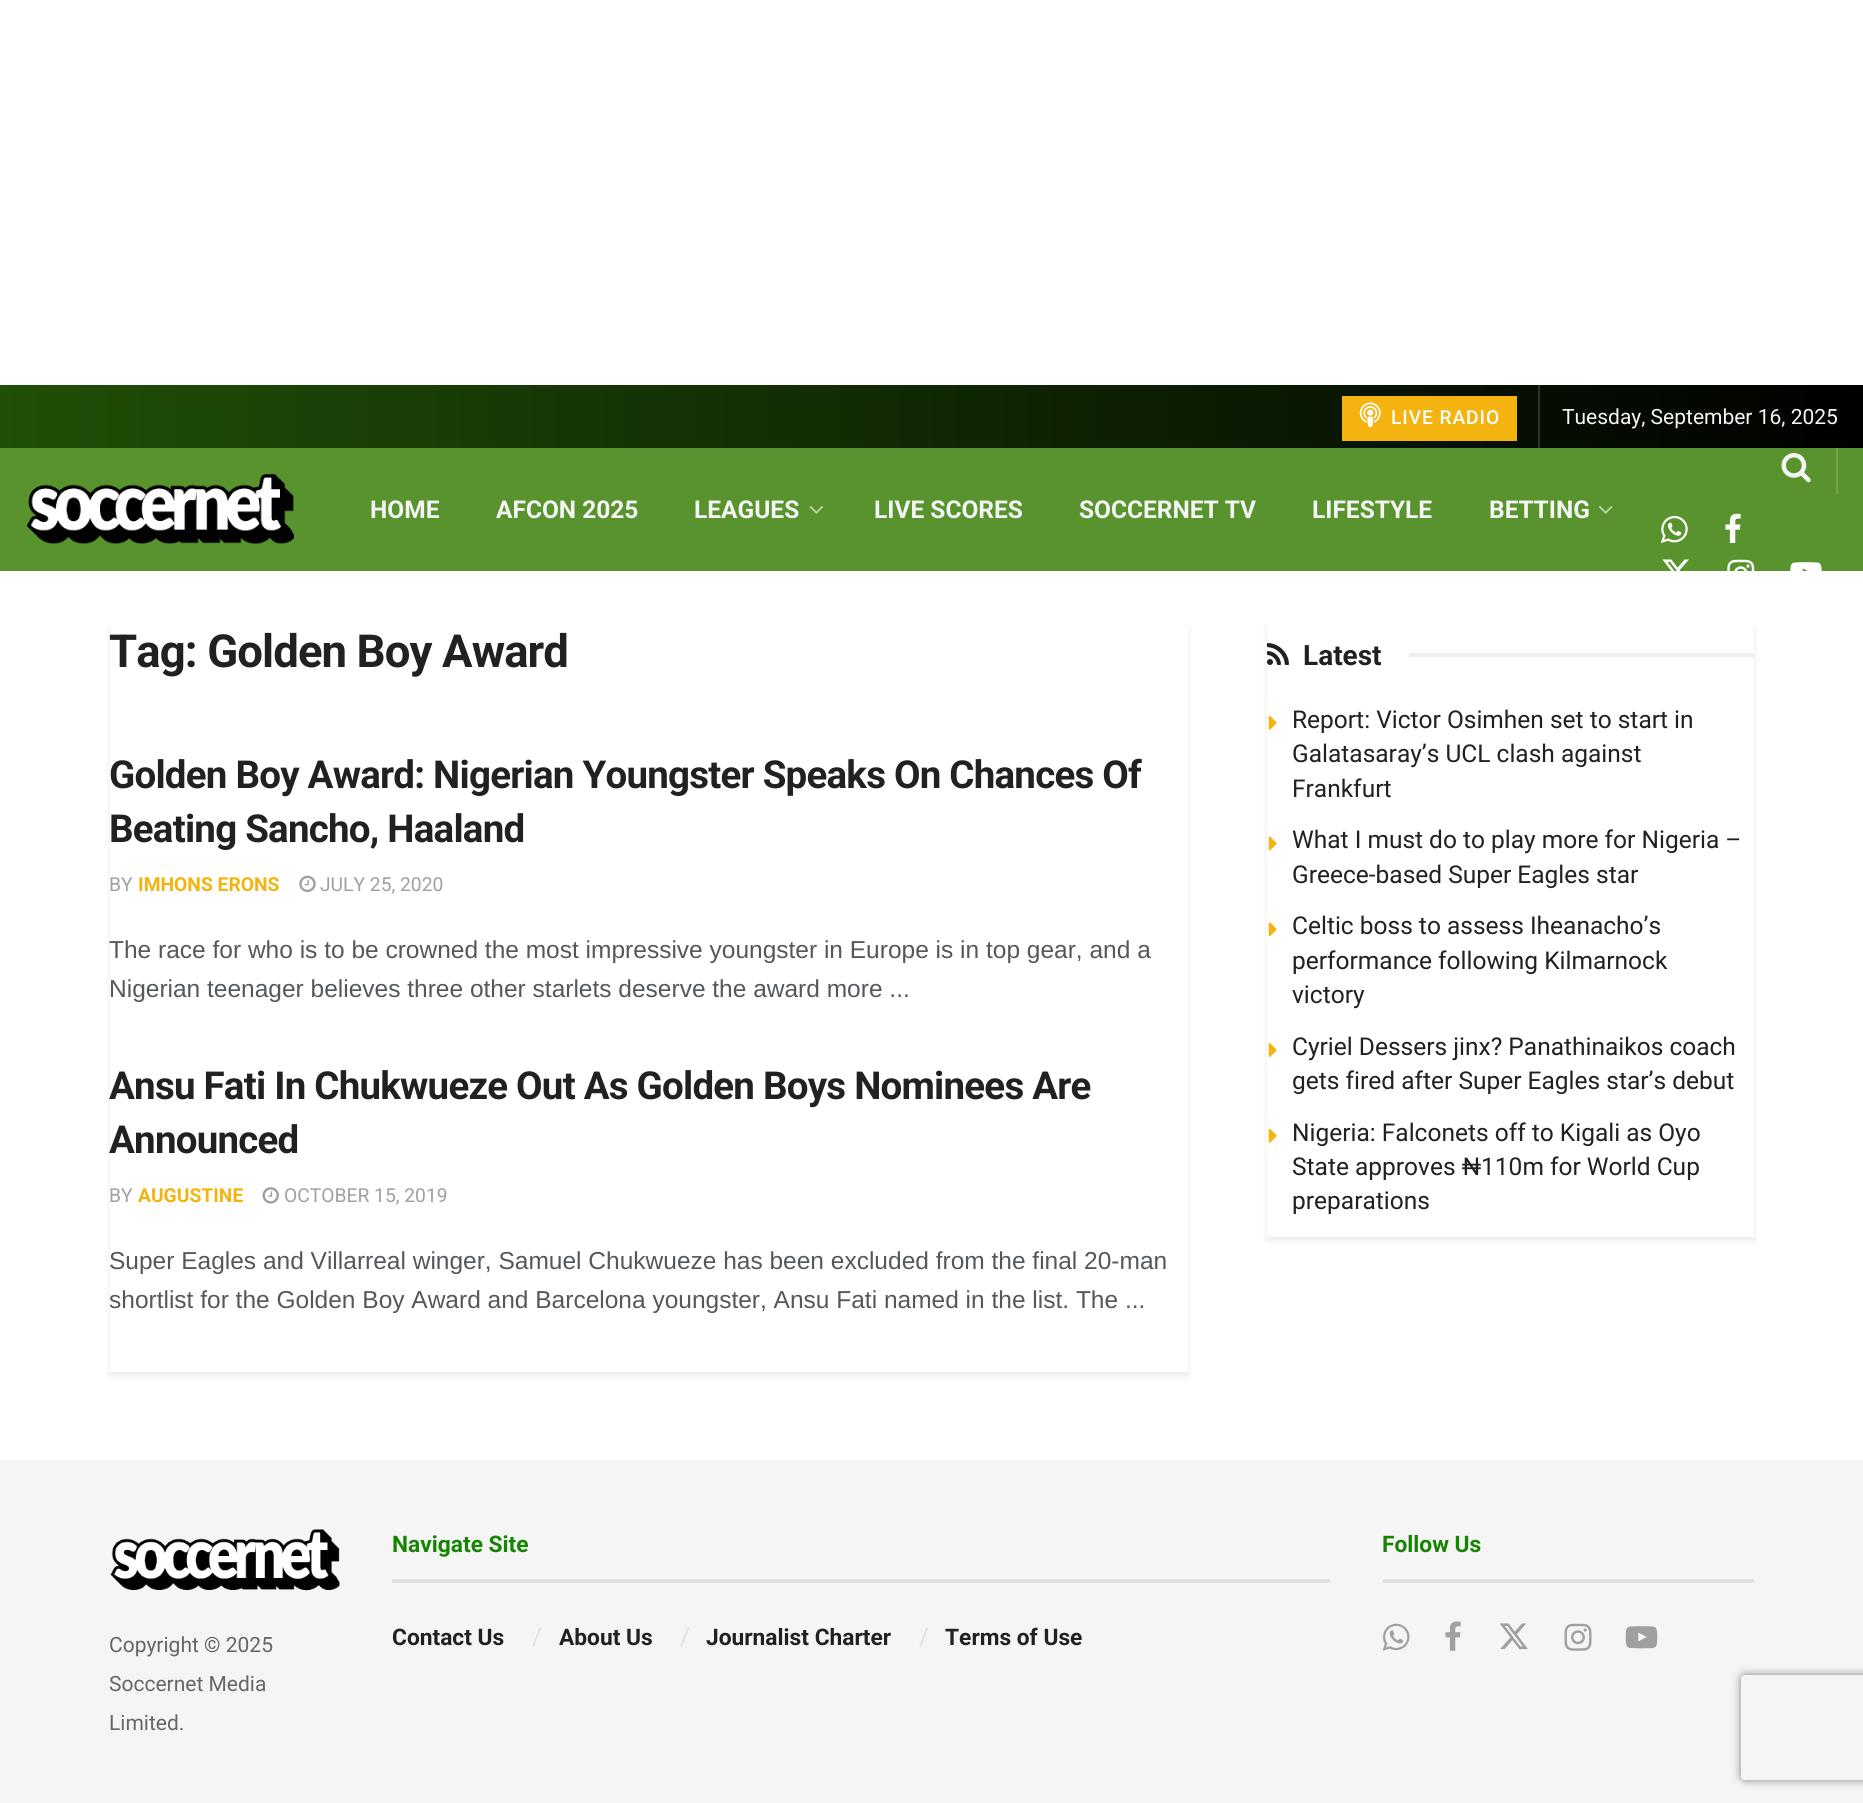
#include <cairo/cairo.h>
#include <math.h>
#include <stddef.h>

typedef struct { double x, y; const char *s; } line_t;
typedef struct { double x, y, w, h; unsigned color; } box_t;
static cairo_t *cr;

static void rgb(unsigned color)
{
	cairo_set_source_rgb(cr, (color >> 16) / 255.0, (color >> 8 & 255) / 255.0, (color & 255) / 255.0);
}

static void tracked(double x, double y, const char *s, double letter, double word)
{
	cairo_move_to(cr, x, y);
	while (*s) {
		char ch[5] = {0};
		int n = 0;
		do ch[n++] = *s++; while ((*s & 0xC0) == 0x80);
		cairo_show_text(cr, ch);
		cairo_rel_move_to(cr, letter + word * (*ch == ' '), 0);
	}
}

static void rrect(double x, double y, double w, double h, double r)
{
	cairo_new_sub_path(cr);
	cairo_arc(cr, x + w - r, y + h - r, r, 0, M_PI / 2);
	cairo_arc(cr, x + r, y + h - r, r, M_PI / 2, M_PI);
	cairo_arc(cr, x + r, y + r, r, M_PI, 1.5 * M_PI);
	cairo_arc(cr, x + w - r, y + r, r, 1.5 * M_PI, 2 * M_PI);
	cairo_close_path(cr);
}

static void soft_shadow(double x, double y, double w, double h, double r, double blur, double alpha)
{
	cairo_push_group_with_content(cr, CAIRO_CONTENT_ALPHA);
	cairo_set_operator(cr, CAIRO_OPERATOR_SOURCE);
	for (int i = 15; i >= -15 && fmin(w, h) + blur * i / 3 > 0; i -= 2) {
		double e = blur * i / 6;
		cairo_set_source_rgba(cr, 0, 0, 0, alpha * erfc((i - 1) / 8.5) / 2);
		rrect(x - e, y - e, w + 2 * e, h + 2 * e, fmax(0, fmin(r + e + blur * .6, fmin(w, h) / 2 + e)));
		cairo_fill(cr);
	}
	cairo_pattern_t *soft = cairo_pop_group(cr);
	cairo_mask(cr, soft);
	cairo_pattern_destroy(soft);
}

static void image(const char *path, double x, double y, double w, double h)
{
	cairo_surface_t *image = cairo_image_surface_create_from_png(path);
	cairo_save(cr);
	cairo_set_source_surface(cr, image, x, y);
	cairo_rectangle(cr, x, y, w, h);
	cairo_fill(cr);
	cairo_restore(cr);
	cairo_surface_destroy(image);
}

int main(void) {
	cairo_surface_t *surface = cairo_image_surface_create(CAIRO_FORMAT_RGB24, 1863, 1803);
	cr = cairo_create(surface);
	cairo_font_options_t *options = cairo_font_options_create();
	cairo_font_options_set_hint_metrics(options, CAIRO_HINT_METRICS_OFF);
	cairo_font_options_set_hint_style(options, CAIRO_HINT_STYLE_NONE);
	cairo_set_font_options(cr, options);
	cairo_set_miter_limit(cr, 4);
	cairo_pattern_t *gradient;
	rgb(0xffffff);
	cairo_paint(cr);
	gradient = cairo_pattern_create_linear(0, 417, 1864, 416);
	cairo_pattern_add_color_stop_rgba(gradient, 0, 0.125, 0.31, 0.027, 1);
	cairo_pattern_add_color_stop_rgba(gradient, 1, 0, 0, 0, 1);
	cairo_set_source(cr, gradient);
	cairo_pattern_destroy(gradient);
	cairo_rectangle(cr, 0, 385, 1863, 63);
	cairo_fill(cr);
	rgb(0x2b3227);
	cairo_rectangle(cr, 1538, 385, 2, 63);
	cairo_fill(cr);
	rgb(0xf4b30e);
	cairo_rectangle(cr, 1342, 396, 175, 45);
	cairo_fill(cr);
	image("img/1.png", 1359, 402, 22, 25);
	rgb(0x58932d);
	cairo_rectangle(cr, 0, 448, 1863, 123);
	cairo_fill(cr);
	rgb(0x71a34d);
	cairo_rectangle(cr, 1836, 448, 2, 46);
	cairo_fill(cr);
	image("img/2.png", 26, 474, 268, 71);
	image("img/3.png", 809, 506, 15, 8);
	image("img/4.png", 1598, 506, 15, 8);
	image("img/5.png", 1781, 453, 30, 30);
	image("img/6.png", 1660, 515, 28, 28);
	image("img/7.png", 1725, 513, 16, 30);
	image("img/8.png", 1662, 559, 27, 12);
	image("img/9.png", 1727, 559, 28, 12);
	image("img/10.png", 1790, 562, 32, 9);
	cairo_save(cr);
	cairo_set_fill_rule(cr, CAIRO_FILL_RULE_EVEN_ODD);
	cairo_new_path(cr);
	cairo_move_to(cr, 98, 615);
	cairo_line_to(cr, 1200, 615);
	cairo_line_to(cr, 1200, 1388);
	cairo_line_to(cr, 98, 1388);
	cairo_close_path(cr);
	cairo_move_to(cr, 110, 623);
	cairo_line_to(cr, 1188, 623);
	cairo_line_to(cr, 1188, 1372);
	cairo_line_to(cr, 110, 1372);
	cairo_close_path(cr);
	cairo_clip(cr);
	rgb(0x000000);
	soft_shadow(110, 627, 1078, 749, 0, 3.5, 0.08);
	cairo_restore(cr);
	image("img/11.png", 299, 875, 17, 18);
	image("img/12.png", 262, 1187, 17, 17);
	cairo_save(cr);
	cairo_set_fill_rule(cr, CAIRO_FILL_RULE_EVEN_ODD);
	cairo_new_path(cr);
	cairo_move_to(cr, 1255, 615);
	cairo_line_to(cr, 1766, 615);
	cairo_line_to(cr, 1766, 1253);
	cairo_line_to(cr, 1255, 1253);
	cairo_close_path(cr);
	cairo_move_to(cr, 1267, 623);
	cairo_line_to(cr, 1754, 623);
	cairo_line_to(cr, 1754, 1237);
	cairo_line_to(cr, 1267, 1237);
	cairo_close_path(cr);
	cairo_clip(cr);
	rgb(0x000000);
	soft_shadow(1267, 627, 487, 614, 0, 3.5, 0.08);
	cairo_restore(cr);
	image("img/13.png", 1267, 643, 22, 22);
	rgb(0xeeeeee);
	cairo_rectangle(cr, 1409, 653, 345, 4);
	cairo_fill(cr);
	image("img/14.png", 1268, 715, 9, 15);
	image("img/15.png", 1268, 836, 9, 15);
	image("img/16.png", 1268, 922, 9, 15);
	image("img/17.png", 1268, 1043, 9, 14);
	image("img/14.png", 1268, 1128, 9, 15);
	{
		static const box_t items[] = {
			{0, 1460, 1863, 343, 0xf5f5f5},
			{392, 1579, 938, 4, 0xe0e0e0},
			{1383, 1579, 371, 4, 0xe0e0e0},
		};
		for (size_t i = 0; i < sizeof items / sizeof *items; i++) {
			rgb(items[i].color);
			cairo_rectangle(cr, items[i].x, items[i].y, items[i].w, items[i].h);
			cairo_fill(cr);
		}
	}
	image("img/18.png", 1382, 1623, 28, 28);
	image("img/19.png", 1445, 1621, 16, 30);
	image("img/20.png", 1499, 1623, 29, 27);
	image("img/21.png", 1564, 1623, 28, 28);
	image("img/22.png", 1625, 1626, 33, 23);
	image("img/23.png", 110, 1529, 230, 62);
	cairo_save(cr);
	cairo_set_fill_rule(cr, CAIRO_FILL_RULE_EVEN_ODD);
	cairo_new_path(cr);
	cairo_move_to(cr, 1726, 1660);
	cairo_line_to(cr, 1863, 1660);
	cairo_line_to(cr, 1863, 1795);
	cairo_line_to(cr, 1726, 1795);
	cairo_close_path(cr);
	cairo_move_to(cr, 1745, 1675);
	cairo_line_to(cr, 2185, 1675);
	cairo_curve_to(cr, 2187, 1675, 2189, 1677, 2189, 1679);
	cairo_line_to(cr, 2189, 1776);
	cairo_curve_to(cr, 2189, 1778, 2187, 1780, 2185, 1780);
	cairo_line_to(cr, 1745, 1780);
	cairo_curve_to(cr, 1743, 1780, 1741, 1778, 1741, 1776);
	cairo_line_to(cr, 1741, 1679);
	cairo_curve_to(cr, 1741, 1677, 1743, 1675, 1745, 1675);
	cairo_close_path(cr);
	cairo_clip(cr);
	rgb(0x808080);
	soft_shadow(1741, 1675, 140, 105, 4, 4.5, 1);
	cairo_restore(cr);
	cairo_select_font_face(cr, "Roboto Medium", CAIRO_FONT_SLANT_NORMAL, CAIRO_FONT_WEIGHT_NORMAL);
	cairo_set_font_size(cr, 19.25);
	rgb(0xffffff);
	tracked(1391, 424, "LIVE RADIO", 0.9, 0);
	cairo_select_font_face(cr, "Roboto", CAIRO_FONT_SLANT_NORMAL, CAIRO_FONT_WEIGHT_NORMAL);
	cairo_set_font_size(cr, 21);
	rgb(0xf5f5f5);
	cairo_move_to(cr, 1562, 424);
	cairo_show_text(cr, "Tuesday, September 16, 2025");
	cairo_select_font_face(cr, "Roboto", CAIRO_FONT_SLANT_NORMAL, CAIRO_FONT_WEIGHT_BOLD);
	cairo_set_font_size(cr, 24.5);
	{
		static const line_t items[] = {
			{370, 518, "HOME"},
			{496, 518, "AFCON 2025"},
			{694, 518, "LEAGUES"},
			{874, 518, "LIVE SCORES"},
			{1079, 518, "SOCCERNET TV"},
			{1312, 518, "LIFESTYLE"},
			{1489, 518, "BETTING"},
		};
		for (size_t i = 0; i < sizeof items / sizeof *items; i++) {
			cairo_move_to(cr, items[i].x, items[i].y);
			cairo_show_text(cr, items[i].s);
		}
	}
	cairo_set_font_size(cr, 45.5);
	rgb(0x212121);
	tracked(109, 667, "Tag: Golden Boy Award", -0.9, 0);
	cairo_set_font_size(cr, 38.5);
	tracked(109, 788, "Golden Boy Award: Nigerian Youngster Speaks On Chances Of", -0.77, 0);
	tracked(109, 842, "Beating Sancho, Haaland", -0.77, 0);
	cairo_select_font_face(cr, "Roboto", CAIRO_FONT_SLANT_NORMAL, CAIRO_FONT_WEIGHT_NORMAL);
	cairo_set_font_size(cr, 19.25);
	rgb(0xa0a0a0);
	cairo_move_to(cr, 109, 891);
	cairo_show_text(cr, "BY");
	cairo_select_font_face(cr, "Roboto", CAIRO_FONT_SLANT_NORMAL, CAIRO_FONT_WEIGHT_BOLD);
	rgb(0xf4b30e);
	cairo_move_to(cr, 138, 891);
	cairo_show_text(cr, "IMHONS ERONS");
	cairo_select_font_face(cr, "Roboto", CAIRO_FONT_SLANT_NORMAL, CAIRO_FONT_WEIGHT_NORMAL);
	rgb(0xa0a0a0);
	cairo_move_to(cr, 320, 891);
	cairo_show_text(cr, "JULY 25, 2020");
	cairo_select_font_face(cr, "Liberation Sans", CAIRO_FONT_SLANT_NORMAL, CAIRO_FONT_WEIGHT_NORMAL);
	cairo_set_font_size(cr, 24.5);
	rgb(0x53585c);
	cairo_move_to(cr, 109, 958);
	cairo_show_text(cr, "The race for who is to be crowned the most impressive youngster in Europe is in top gear, and a");
	cairo_move_to(cr, 109, 997);
	cairo_show_text(cr, "Nigerian teenager believes three other starlets deserve the award more ...");
	cairo_select_font_face(cr, "Roboto", CAIRO_FONT_SLANT_NORMAL, CAIRO_FONT_WEIGHT_BOLD);
	cairo_set_font_size(cr, 38.5);
	rgb(0x212121);
	tracked(109, 1099, "Ansu Fati In Chukwueze Out As Golden Boys Nominees Are", -0.77, 0);
	tracked(109, 1153, "Announced", -0.77, 0);
	cairo_select_font_face(cr, "Roboto", CAIRO_FONT_SLANT_NORMAL, CAIRO_FONT_WEIGHT_NORMAL);
	cairo_set_font_size(cr, 19.25);
	rgb(0xa0a0a0);
	cairo_move_to(cr, 109, 1202);
	cairo_show_text(cr, "BY");
	cairo_select_font_face(cr, "Roboto", CAIRO_FONT_SLANT_NORMAL, CAIRO_FONT_WEIGHT_BOLD);
	rgb(0xf4b30e);
	cairo_move_to(cr, 138, 1202);
	cairo_show_text(cr, "AUGUSTINE");
	cairo_select_font_face(cr, "Roboto", CAIRO_FONT_SLANT_NORMAL, CAIRO_FONT_WEIGHT_NORMAL);
	rgb(0xa0a0a0);
	cairo_move_to(cr, 284, 1202);
	cairo_show_text(cr, "OCTOBER 15, 2019");
	cairo_select_font_face(cr, "Liberation Sans", CAIRO_FONT_SLANT_NORMAL, CAIRO_FONT_WEIGHT_NORMAL);
	cairo_set_font_size(cr, 24.5);
	rgb(0x53585c);
	cairo_move_to(cr, 109, 1269);
	cairo_show_text(cr, "Super Eagles and Villarreal winger, Samuel Chukwueze has been excluded from the final 20-man");
	cairo_move_to(cr, 109, 1308);
	cairo_show_text(cr, "shortlist for the Golden Boy Award and Barcelona youngster, Ansu Fati named in the list. The ...");
	cairo_select_font_face(cr, "Roboto", CAIRO_FONT_SLANT_NORMAL, CAIRO_FONT_WEIGHT_BOLD);
	cairo_set_font_size(cr, 28);
	rgb(0x212121);
	cairo_move_to(cr, 1303, 665);
	cairo_show_text(cr, "Latest");
	cairo_select_font_face(cr, "Roboto", CAIRO_FONT_SLANT_NORMAL, CAIRO_FONT_WEIGHT_NORMAL);
	cairo_set_font_size(cr, 24.5);
	{
		static const line_t items[] = {
			{1292, 728, "Report: Victor Osimhen set to start in"},
			{1292, 762, "Galatasaray’s UCL clash against"},
			{1292, 797, "Frankfurt"},
			{1292, 848, "What I must do to play more for Nigeria –"},
			{1292, 883, "Greece-based Super Eagles star"},
			{1292, 934, "Celtic boss to assess Iheanacho’s"},
			{1292, 969, "performance following Kilmarnock"},
			{1292, 1003, "victory"},
			{1292, 1055, "Cyriel Dessers jinx? Panathinaikos coach"},
			{1292, 1089, "gets fired after Super Eagles star’s debut"},
			{1292, 1141, "Nigeria: Falconets off to Kigali as Oyo"},
			{1292, 1175, "State approves ₦110m for World Cup"},
			{1292, 1209, "preparations"},
		};
		for (size_t i = 0; i < sizeof items / sizeof *items; i++) {
			cairo_move_to(cr, items[i].x, items[i].y);
			cairo_show_text(cr, items[i].s);
		}
	}
	cairo_select_font_face(cr, "Roboto", CAIRO_FONT_SLANT_NORMAL, CAIRO_FONT_WEIGHT_BOLD);
	cairo_set_font_size(cr, 22.75);
	rgb(0x158401);
	cairo_move_to(cr, 392, 1552);
	cairo_show_text(cr, "Navigate Site");
	rgb(0x212121);
	cairo_move_to(cr, 392, 1645);
	cairo_show_text(cr, "Contact Us");
	cairo_select_font_face(cr, "Roboto", CAIRO_FONT_SLANT_NORMAL, CAIRO_FONT_WEIGHT_NORMAL);
	cairo_set_font_size(cr, 24.5);
	rgb(0xe0e0e0);
	cairo_move_to(cr, 532, 1645);
	cairo_show_text(cr, "/");
	cairo_select_font_face(cr, "Roboto", CAIRO_FONT_SLANT_NORMAL, CAIRO_FONT_WEIGHT_BOLD);
	cairo_set_font_size(cr, 22.75);
	rgb(0x212121);
	cairo_move_to(cr, 559, 1645);
	cairo_show_text(cr, "About Us");
	cairo_select_font_face(cr, "Roboto", CAIRO_FONT_SLANT_NORMAL, CAIRO_FONT_WEIGHT_NORMAL);
	cairo_set_font_size(cr, 24.5);
	rgb(0xe0e0e0);
	cairo_move_to(cr, 680, 1645);
	cairo_show_text(cr, "/");
	cairo_select_font_face(cr, "Roboto", CAIRO_FONT_SLANT_NORMAL, CAIRO_FONT_WEIGHT_BOLD);
	cairo_set_font_size(cr, 22.75);
	rgb(0x212121);
	cairo_move_to(cr, 706, 1645);
	cairo_show_text(cr, "Journalist Charter");
	cairo_select_font_face(cr, "Roboto", CAIRO_FONT_SLANT_NORMAL, CAIRO_FONT_WEIGHT_NORMAL);
	cairo_set_font_size(cr, 24.5);
	rgb(0xe0e0e0);
	cairo_move_to(cr, 919, 1645);
	cairo_show_text(cr, "/");
	cairo_select_font_face(cr, "Roboto", CAIRO_FONT_SLANT_NORMAL, CAIRO_FONT_WEIGHT_BOLD);
	cairo_set_font_size(cr, 22.75);
	rgb(0x212121);
	cairo_move_to(cr, 945, 1645);
	cairo_show_text(cr, "Terms of Use");
	rgb(0x158401);
	cairo_move_to(cr, 1382, 1552);
	cairo_show_text(cr, "Follow Us");
	cairo_select_font_face(cr, "Roboto", CAIRO_FONT_SLANT_NORMAL, CAIRO_FONT_WEIGHT_NORMAL);
	cairo_set_font_size(cr, 21);
	rgb(0x666666);
	{
		static const line_t items[] = {
			{109, 1652, "Copyright © 2025"},
			{109, 1691, "Soccernet Media"},
			{109, 1730, "Limited."},
		};
		for (size_t i = 0; i < sizeof items / sizeof *items; i++) {
			cairo_move_to(cr, items[i].x, items[i].y);
			cairo_show_text(cr, items[i].s);
		}
	}
	cairo_surface_write_to_png(surface, "page.png");
	cairo_font_options_destroy(options);
	cairo_destroy(cr);
	cairo_surface_destroy(surface);
	return 0;
}
